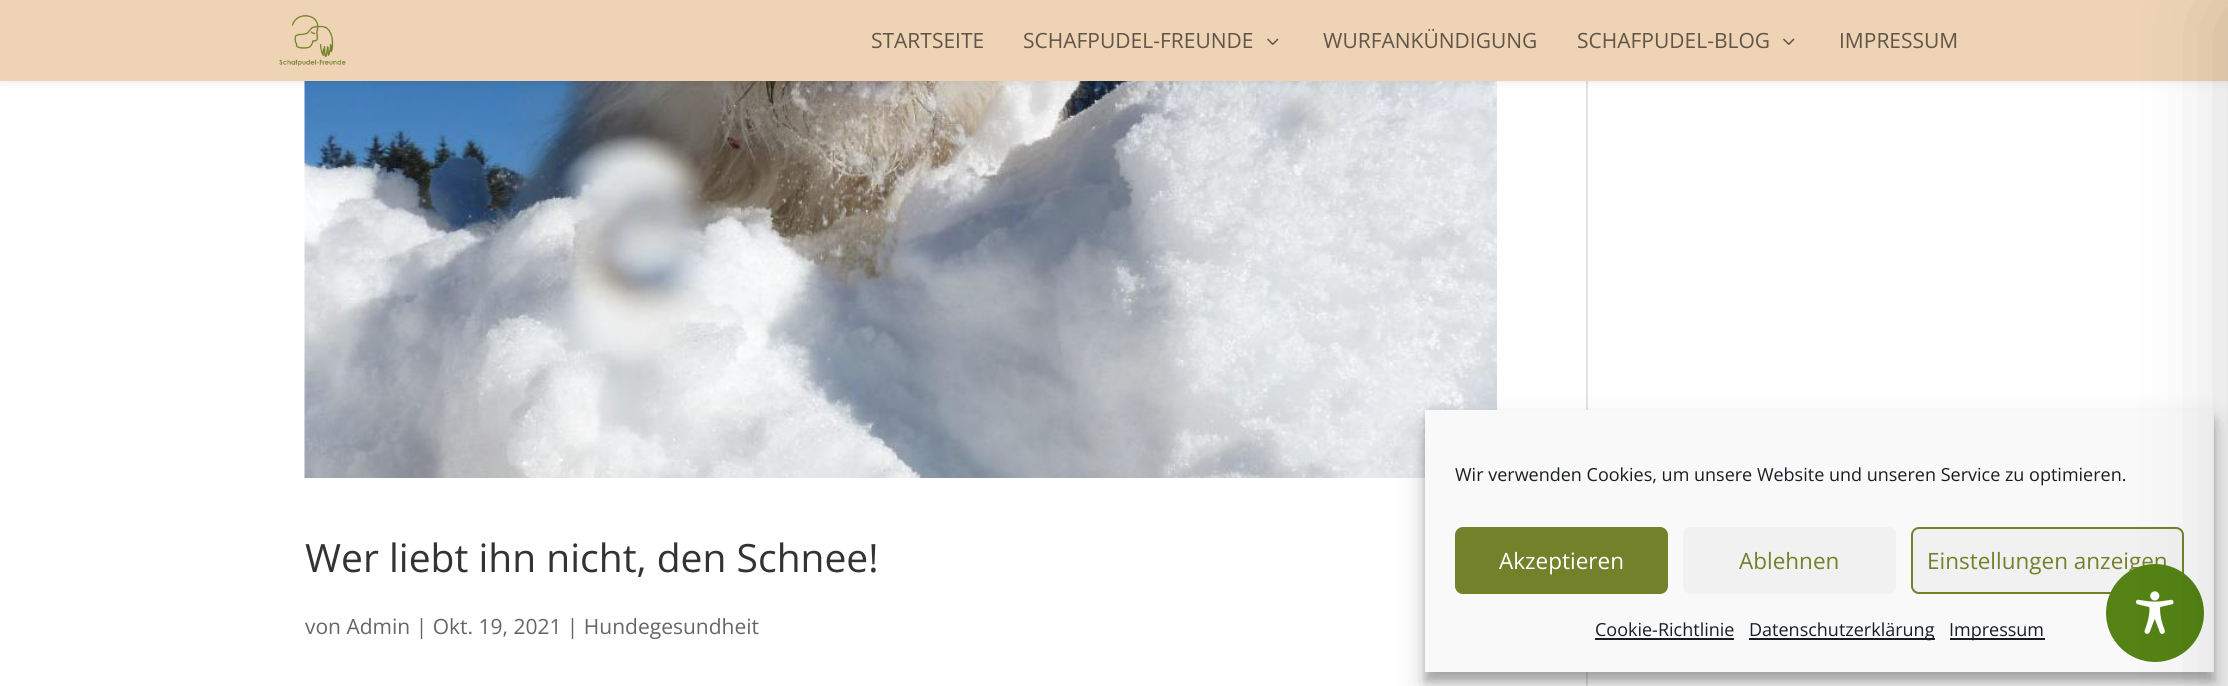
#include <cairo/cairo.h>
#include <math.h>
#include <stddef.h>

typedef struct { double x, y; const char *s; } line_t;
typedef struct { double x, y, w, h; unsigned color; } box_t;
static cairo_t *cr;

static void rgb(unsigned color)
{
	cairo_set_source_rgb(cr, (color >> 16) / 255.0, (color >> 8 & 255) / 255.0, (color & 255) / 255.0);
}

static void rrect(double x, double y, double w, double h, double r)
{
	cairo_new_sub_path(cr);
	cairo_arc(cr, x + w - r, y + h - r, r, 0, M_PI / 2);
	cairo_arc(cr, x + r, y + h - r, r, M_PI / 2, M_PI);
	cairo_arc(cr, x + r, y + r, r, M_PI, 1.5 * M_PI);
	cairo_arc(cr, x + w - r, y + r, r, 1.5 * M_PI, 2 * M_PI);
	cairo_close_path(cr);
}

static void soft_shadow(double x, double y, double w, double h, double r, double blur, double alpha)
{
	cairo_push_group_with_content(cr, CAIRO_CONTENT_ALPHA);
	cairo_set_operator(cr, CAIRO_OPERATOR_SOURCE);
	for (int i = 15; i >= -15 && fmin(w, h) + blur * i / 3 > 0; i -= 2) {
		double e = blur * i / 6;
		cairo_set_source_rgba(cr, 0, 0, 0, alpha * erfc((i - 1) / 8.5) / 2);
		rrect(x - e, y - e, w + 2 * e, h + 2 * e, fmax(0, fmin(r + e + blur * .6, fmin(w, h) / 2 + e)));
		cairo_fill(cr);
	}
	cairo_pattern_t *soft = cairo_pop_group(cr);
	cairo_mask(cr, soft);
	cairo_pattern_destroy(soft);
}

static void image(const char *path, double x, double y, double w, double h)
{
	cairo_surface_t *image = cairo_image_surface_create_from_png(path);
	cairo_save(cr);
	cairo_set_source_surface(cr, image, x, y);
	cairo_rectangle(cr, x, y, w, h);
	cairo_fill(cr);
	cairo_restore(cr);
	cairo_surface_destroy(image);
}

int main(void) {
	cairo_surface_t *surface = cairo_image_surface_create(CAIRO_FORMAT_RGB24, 2228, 686);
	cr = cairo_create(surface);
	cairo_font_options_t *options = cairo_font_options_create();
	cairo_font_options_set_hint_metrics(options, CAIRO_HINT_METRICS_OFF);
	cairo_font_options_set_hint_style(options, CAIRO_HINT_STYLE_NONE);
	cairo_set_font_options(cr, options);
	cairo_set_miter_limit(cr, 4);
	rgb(0xffffff);
	cairo_paint(cr);
	image("img/3.png", 304, 81, 1193, 397);
	rgb(0xe2e2e2);
	cairo_rectangle(cr, 1586, 81, 2, 605);
	cairo_fill(cr);
	rgb(0x000000);
	soft_shadow(0, 0, 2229, 81, 0, 5, 0.1);
	rgb(0xeed4b5);
	cairo_rectangle(cr, 0, 0, 2228, 81);
	cairo_fill(cr);
	image("img/1.png", 279, 15, 67, 51);
	image("img/2.png", 1267, 38, 12, 7);
	image("img/2.png", 1783, 38, 12, 7);
	rgb(0x000000);
	soft_shadow(1425, 419, 789, 262, 0, 4.5, 0.23);
	soft_shadow(1425, 425, 789, 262, 0, 15, 0.19);
	rgb(0xf9f9f9);
	cairo_rectangle(cr, 1425, 410, 789, 262);
	cairo_fill(cr);
	rgb(0x73822a);
	rrect(1456, 528, 211, 65, 7);
	cairo_fill_preserve(cr);
	cairo_stroke(cr);
	rgb(0xf1f1f1);
	rrect(1683, 527, 213, 67, 8);
	cairo_fill(cr);
	rrect(1912, 528, 271, 65, 7);
	cairo_fill_preserve(cr);
	rgb(0x73822a);
	cairo_stroke(cr);
	{
		static const box_t items[] = {
			{1595, 638, 139, 2, 0x191e23},
			{1749, 638, 186, 2, 0x191e23},
			{1950, 638, 95, 2, 0x191e23},
		};
		for (size_t i = 0; i < sizeof items / sizeof *items; i++) {
			rgb(items[i].color);
			cairo_rectangle(cr, items[i].x, items[i].y, items[i].w, items[i].h);
			cairo_fill(cr);
		}
	}
	cairo_select_font_face(cr, "Open Sans", CAIRO_FONT_SLANT_NORMAL, CAIRO_FONT_WEIGHT_NORMAL);
	cairo_set_font_size(cr, 21);
	rgb(0x5f5548);
	{
		static const line_t items[] = {
			{871, 48, "STARTSEITE"},
			{1023, 48, "SCHAFPUDEL-FREUNDE"},
			{1323, 48, "WURFANKÜNDIGUNG"},
			{1577, 48, "SCHAFPUDEL-BLOG"},
			{1839, 48, "IMPRESSUM"},
		};
		for (size_t i = 0; i < sizeof items / sizeof *items; i++) {
			cairo_move_to(cr, items[i].x, items[i].y);
			cairo_show_text(cr, items[i].s);
		}
	}
	cairo_set_font_size(cr, 39);
	rgb(0x333333);
	cairo_move_to(cr, 305, 572);
	cairo_show_text(cr, "Wer liebt ihn nicht, den Schnee!");
	cairo_set_font_size(cr, 21);
	rgb(0x666666);
	cairo_move_to(cr, 305, 634);
	cairo_show_text(cr, "von Admin | Okt. 19, 2021 | Hundegesundheit");
	cairo_set_font_size(cr, 18);
	rgb(0x191e23);
	cairo_move_to(cr, 1455, 481);
	cairo_show_text(cr, "Wir verwenden Cookies, um unsere Website und unseren Service zu optimieren.");
	cairo_set_font_size(cr, 22.5);
	rgb(0xffffff);
	cairo_move_to(cr, 1499, 569);
	cairo_show_text(cr, "Akzeptieren");
	rgb(0x73822a);
	cairo_move_to(cr, 1739, 569);
	cairo_show_text(cr, "Ablehnen");
	cairo_move_to(cr, 1927, 569);
	cairo_show_text(cr, "Einstellungen anzeigen");
	cairo_set_font_size(cr, 18);
	rgb(0x191e23);
	{
		static const line_t items[] = {
			{1595, 636, "Cookie-Richtlinie"},
			{1749, 636, "Datenschutzerklärung"},
			{1949, 636, "Impressum"},
		};
		for (size_t i = 0; i < sizeof items / sizeof *items; i++) {
			cairo_move_to(cr, items[i].x, items[i].y);
			cairo_show_text(cr, items[i].s);
		}
	}
	rgb(0x548214);
	cairo_new_path(cr);
	cairo_arc(cr, 2155, 613, 49, 0, 2 * M_PI);
	cairo_fill(cr);
	image("img/4.png", 2135, 591, 39, 43);
	rgb(0x000000);
	soft_shadow(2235, 15, 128, 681, 0, 45, 0.2);
	cairo_surface_write_to_png(surface, "page.png");
	cairo_font_options_destroy(options);
	cairo_destroy(cr);
	cairo_surface_destroy(surface);
	return 0;
}
